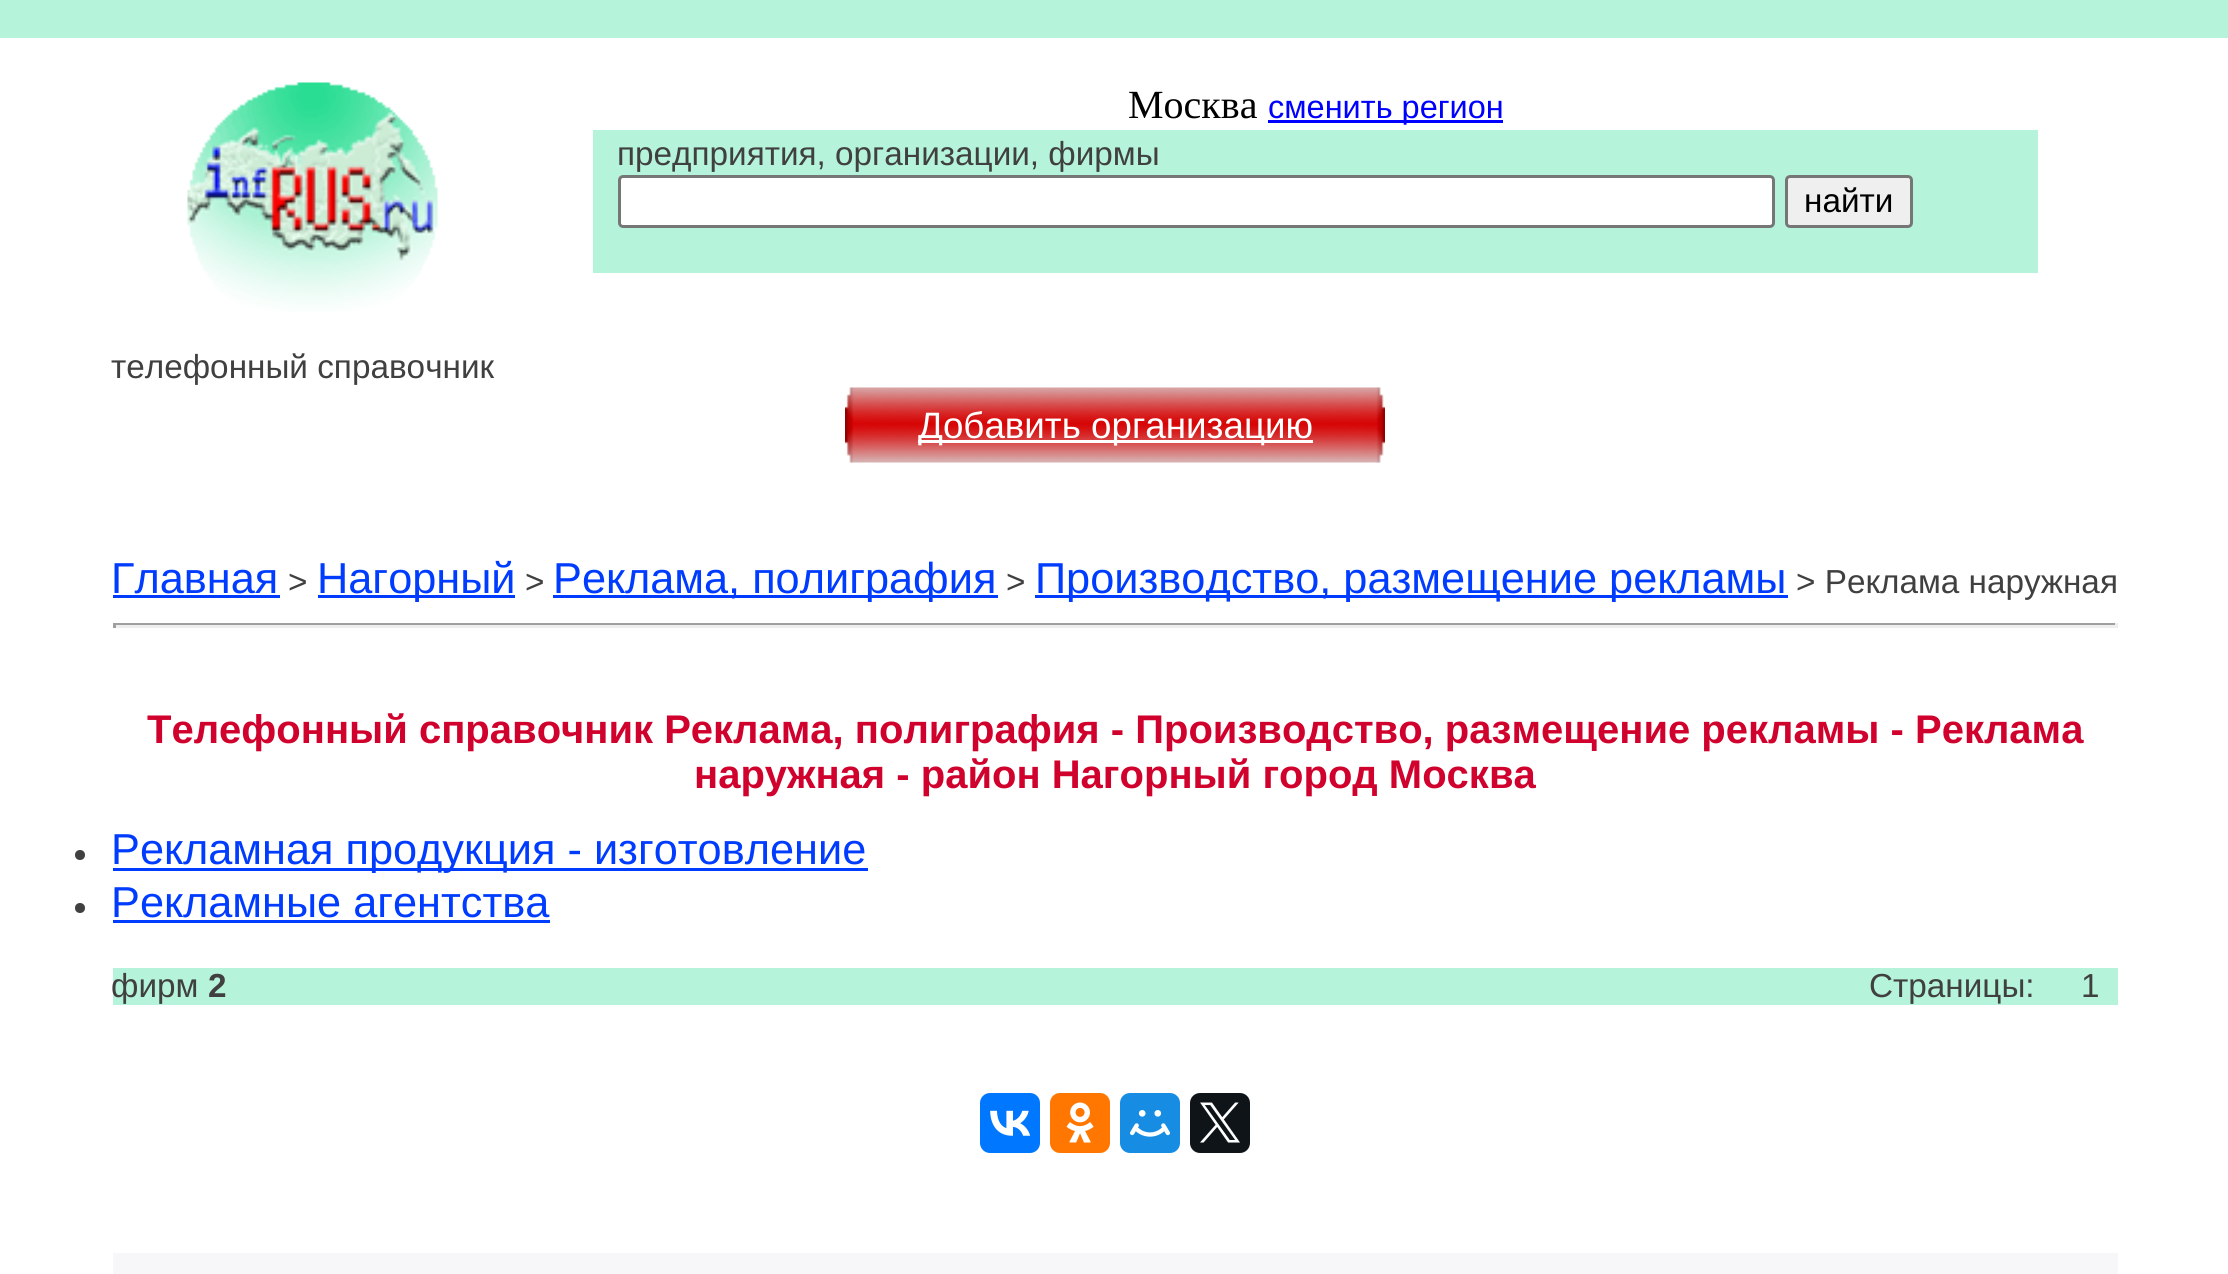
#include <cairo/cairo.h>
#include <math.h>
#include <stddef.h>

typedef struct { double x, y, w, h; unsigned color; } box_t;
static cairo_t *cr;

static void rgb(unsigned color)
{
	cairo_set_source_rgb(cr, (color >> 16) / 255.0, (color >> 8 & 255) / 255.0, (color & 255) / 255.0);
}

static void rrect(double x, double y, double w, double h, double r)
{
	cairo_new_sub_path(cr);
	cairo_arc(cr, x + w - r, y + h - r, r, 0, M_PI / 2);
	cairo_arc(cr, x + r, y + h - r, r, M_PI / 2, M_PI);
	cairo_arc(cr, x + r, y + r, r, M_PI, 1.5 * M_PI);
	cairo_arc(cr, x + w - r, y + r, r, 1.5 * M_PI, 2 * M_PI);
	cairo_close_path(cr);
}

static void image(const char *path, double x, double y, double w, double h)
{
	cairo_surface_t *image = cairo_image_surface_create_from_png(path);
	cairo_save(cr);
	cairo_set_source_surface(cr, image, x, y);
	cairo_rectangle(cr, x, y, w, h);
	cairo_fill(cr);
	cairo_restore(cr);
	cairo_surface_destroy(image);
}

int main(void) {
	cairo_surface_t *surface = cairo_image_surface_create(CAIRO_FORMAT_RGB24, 2228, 1274);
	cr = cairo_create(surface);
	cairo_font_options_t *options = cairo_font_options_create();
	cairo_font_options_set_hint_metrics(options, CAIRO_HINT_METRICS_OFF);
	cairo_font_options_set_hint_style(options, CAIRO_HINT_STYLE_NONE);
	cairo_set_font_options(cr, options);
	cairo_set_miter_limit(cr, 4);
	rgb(0xffffff);
	cairo_paint(cr);
	rgb(0xb5f3da);
	cairo_rectangle(cr, 0, 0, 2228, 38);
	cairo_fill(cr);
	image("img/1.png", 187, 82, 251, 230);
	rgb(0x0000ff);
	cairo_rectangle(cr, 1268, 120, 235, 3);
	cairo_fill(cr);
	rgb(0xb5f3da);
	cairo_rectangle(cr, 593, 130, 1445, 98);
	cairo_fill(cr);
	rgb(0xffffff);
	rrect(619.5, 176.5, 1154, 50, 3.5);
	cairo_fill_preserve(cr);
	rgb(0x767676);
	cairo_set_line_width(cr, 3);
	cairo_stroke(cr);
	rgb(0xefefef);
	rrect(1786.5, 176.5, 125, 50, 3.5);
	cairo_fill_preserve(cr);
	rgb(0x767676);
	cairo_stroke(cr);
	rgb(0xb5f3da);
	cairo_rectangle(cr, 593, 228, 1445, 45);
	cairo_fill(cr);
	image("img/2.png", 845, 387, 20, 76);
	image("img/3.png", 865, 387, 500, 76);
	rgb(0xffffff);
	cairo_rectangle(cr, 918, 440, 395, 3);
	cairo_fill(cr);
	image("img/4.png", 1365, 387, 20, 76);
	{
		static const box_t items[] = {
			{113, 595, 167, 3, 0x003cff},
			{318, 595, 197, 3, 0x003cff},
			{553, 595, 445, 3, 0x003cff},
			{1035, 595, 753, 3, 0x003cff},
			{113, 623, 2005, 2, 0x9f9f9f},
			{2115, 623, 3, 5, 0xeeeeee},
			{113, 625, 2005, 3, 0xeeeeee},
			{113, 623, 3, 5, 0x9f9f9f},
		};
		for (size_t i = 0; i < sizeof items / sizeof *items; i++) {
			rgb(items[i].color);
			cairo_rectangle(cr, items[i].x, items[i].y, items[i].w, items[i].h);
			cairo_fill(cr);
		}
	}
	rgb(0x404040);
	cairo_arc(cr, 80, 855, 5, 0, 2 * M_PI);
	cairo_fill(cr);
	rgb(0x003cff);
	cairo_rectangle(cr, 113, 868, 755, 3);
	cairo_fill(cr);
	rgb(0x404040);
	cairo_arc(cr, 80, 908, 5, 0, 2 * M_PI);
	cairo_fill(cr);
	rgb(0x003cff);
	cairo_rectangle(cr, 113, 920, 437, 3);
	cairo_fill(cr);
	rgb(0xb5f3da);
	cairo_rectangle(cr, 113, 968, 2005, 37);
	cairo_fill(cr);
	rgb(0x0077ff);
	rrect(980, 1093, 60, 60, 10);
	cairo_fill(cr);
	image("img/5.png", 990, 1110, 41, 26);
	rgb(0xff7700);
	rrect(1050, 1093, 60, 60, 10);
	cairo_fill(cr);
	image("img/6.png", 1066, 1102, 28, 41);
	rgb(0x168de2);
	rrect(1120, 1093, 60, 60, 10);
	cairo_fill(cr);
	image("img/7.png", 1130, 1110, 40, 27);
	rgb(0x0f1419);
	rrect(1190, 1093, 60, 60, 10);
	cairo_fill(cr);
	image("img/8.png", 1200, 1102, 40, 41);
	rgb(0xf7f7fa);
	cairo_rectangle(cr, 113, 1253, 2005, 21);
	cairo_fill(cr);
	cairo_select_font_face(cr, "Liberation Serif", CAIRO_FONT_SLANT_NORMAL, CAIRO_FONT_WEIGHT_NORMAL);
	cairo_set_font_size(cr, 40);
	rgb(0x000000);
	cairo_move_to(cr, 1128, 118);
	cairo_show_text(cr, "Москва");
	cairo_select_font_face(cr, "Liberation Sans", CAIRO_FONT_SLANT_NORMAL, CAIRO_FONT_WEIGHT_NORMAL);
	cairo_set_font_size(cr, 32.5);
	rgb(0x0000ff);
	cairo_move_to(cr, 1268, 118);
	cairo_show_text(cr, "сменить регион");
	cairo_set_font_size(cr, 33.3);
	rgb(0x404040);
	cairo_move_to(cr, 617, 165);
	cairo_show_text(cr, "предприятия, организации, фирмы");
	rgb(0x000000);
	cairo_move_to(cr, 1804, 212);
	cairo_show_text(cr, "найти");
	rgb(0x404040);
	cairo_move_to(cr, 111, 378);
	cairo_show_text(cr, "телефонный справочник");
	cairo_set_font_size(cr, 36.75);
	rgb(0xffffff);
	cairo_move_to(cr, 918, 438);
	cairo_show_text(cr, "Добавить организацию");
	cairo_set_font_size(cr, 43.3);
	rgb(0x003cff);
	cairo_move_to(cr, 111, 593);
	cairo_show_text(cr, "Главная");
	cairo_set_font_size(cr, 33.3);
	rgb(0x404040);
	cairo_move_to(cr, 288, 593);
	cairo_show_text(cr, ">");
	cairo_set_font_size(cr, 43.3);
	rgb(0x003cff);
	cairo_move_to(cr, 317, 593);
	cairo_show_text(cr, "Нагорный");
	cairo_set_font_size(cr, 33.3);
	rgb(0x404040);
	cairo_move_to(cr, 525, 593);
	cairo_show_text(cr, ">");
	cairo_set_font_size(cr, 43.3);
	rgb(0x003cff);
	cairo_move_to(cr, 553, 593);
	cairo_show_text(cr, "Реклама, полиграфия");
	cairo_set_font_size(cr, 33.3);
	rgb(0x404040);
	cairo_move_to(cr, 1006, 593);
	cairo_show_text(cr, ">");
	cairo_set_font_size(cr, 43.3);
	rgb(0x003cff);
	cairo_move_to(cr, 1035, 593);
	cairo_show_text(cr, "Производство, размещение рекламы");
	cairo_set_font_size(cr, 33.3);
	rgb(0x404040);
	cairo_move_to(cr, 1796, 593);
	cairo_show_text(cr, "> Реклама наружная");
	cairo_select_font_face(cr, "Liberation Sans", CAIRO_FONT_SLANT_NORMAL, CAIRO_FONT_WEIGHT_BOLD);
	cairo_set_font_size(cr, 40);
	rgb(0xd0022d);
	cairo_move_to(cr, 147, 743);
	cairo_show_text(cr, "Телефонный справочник Реклама, полиграфия - Производство, размещение рекламы - Реклама");
	cairo_move_to(cr, 694, 788);
	cairo_show_text(cr, "наружная - район Нагорный город Москва");
	cairo_select_font_face(cr, "Liberation Sans", CAIRO_FONT_SLANT_NORMAL, CAIRO_FONT_WEIGHT_NORMAL);
	cairo_set_font_size(cr, 43.3);
	rgb(0x003cff);
	cairo_move_to(cr, 111, 864);
	cairo_show_text(cr, "Рекламная продукция - изготовление");
	cairo_move_to(cr, 111, 917);
	cairo_show_text(cr, "Рекламные агентства");
	cairo_set_font_size(cr, 33.3);
	rgb(0x404040);
	cairo_move_to(cr, 111, 997);
	cairo_show_text(cr, "фирм");
	cairo_select_font_face(cr, "Liberation Sans", CAIRO_FONT_SLANT_NORMAL, CAIRO_FONT_WEIGHT_BOLD);
	cairo_move_to(cr, 208, 997);
	cairo_show_text(cr, "2");
	cairo_select_font_face(cr, "Liberation Sans", CAIRO_FONT_SLANT_NORMAL, CAIRO_FONT_WEIGHT_NORMAL);
	cairo_move_to(cr, 1869, 997);
	cairo_show_text(cr, "Страницы:");
	cairo_move_to(cr, 2081, 997);
	cairo_show_text(cr, "1");
	cairo_surface_write_to_png(surface, "page.png");
	cairo_font_options_destroy(options);
	cairo_destroy(cr);
	cairo_surface_destroy(surface);
	return 0;
}
